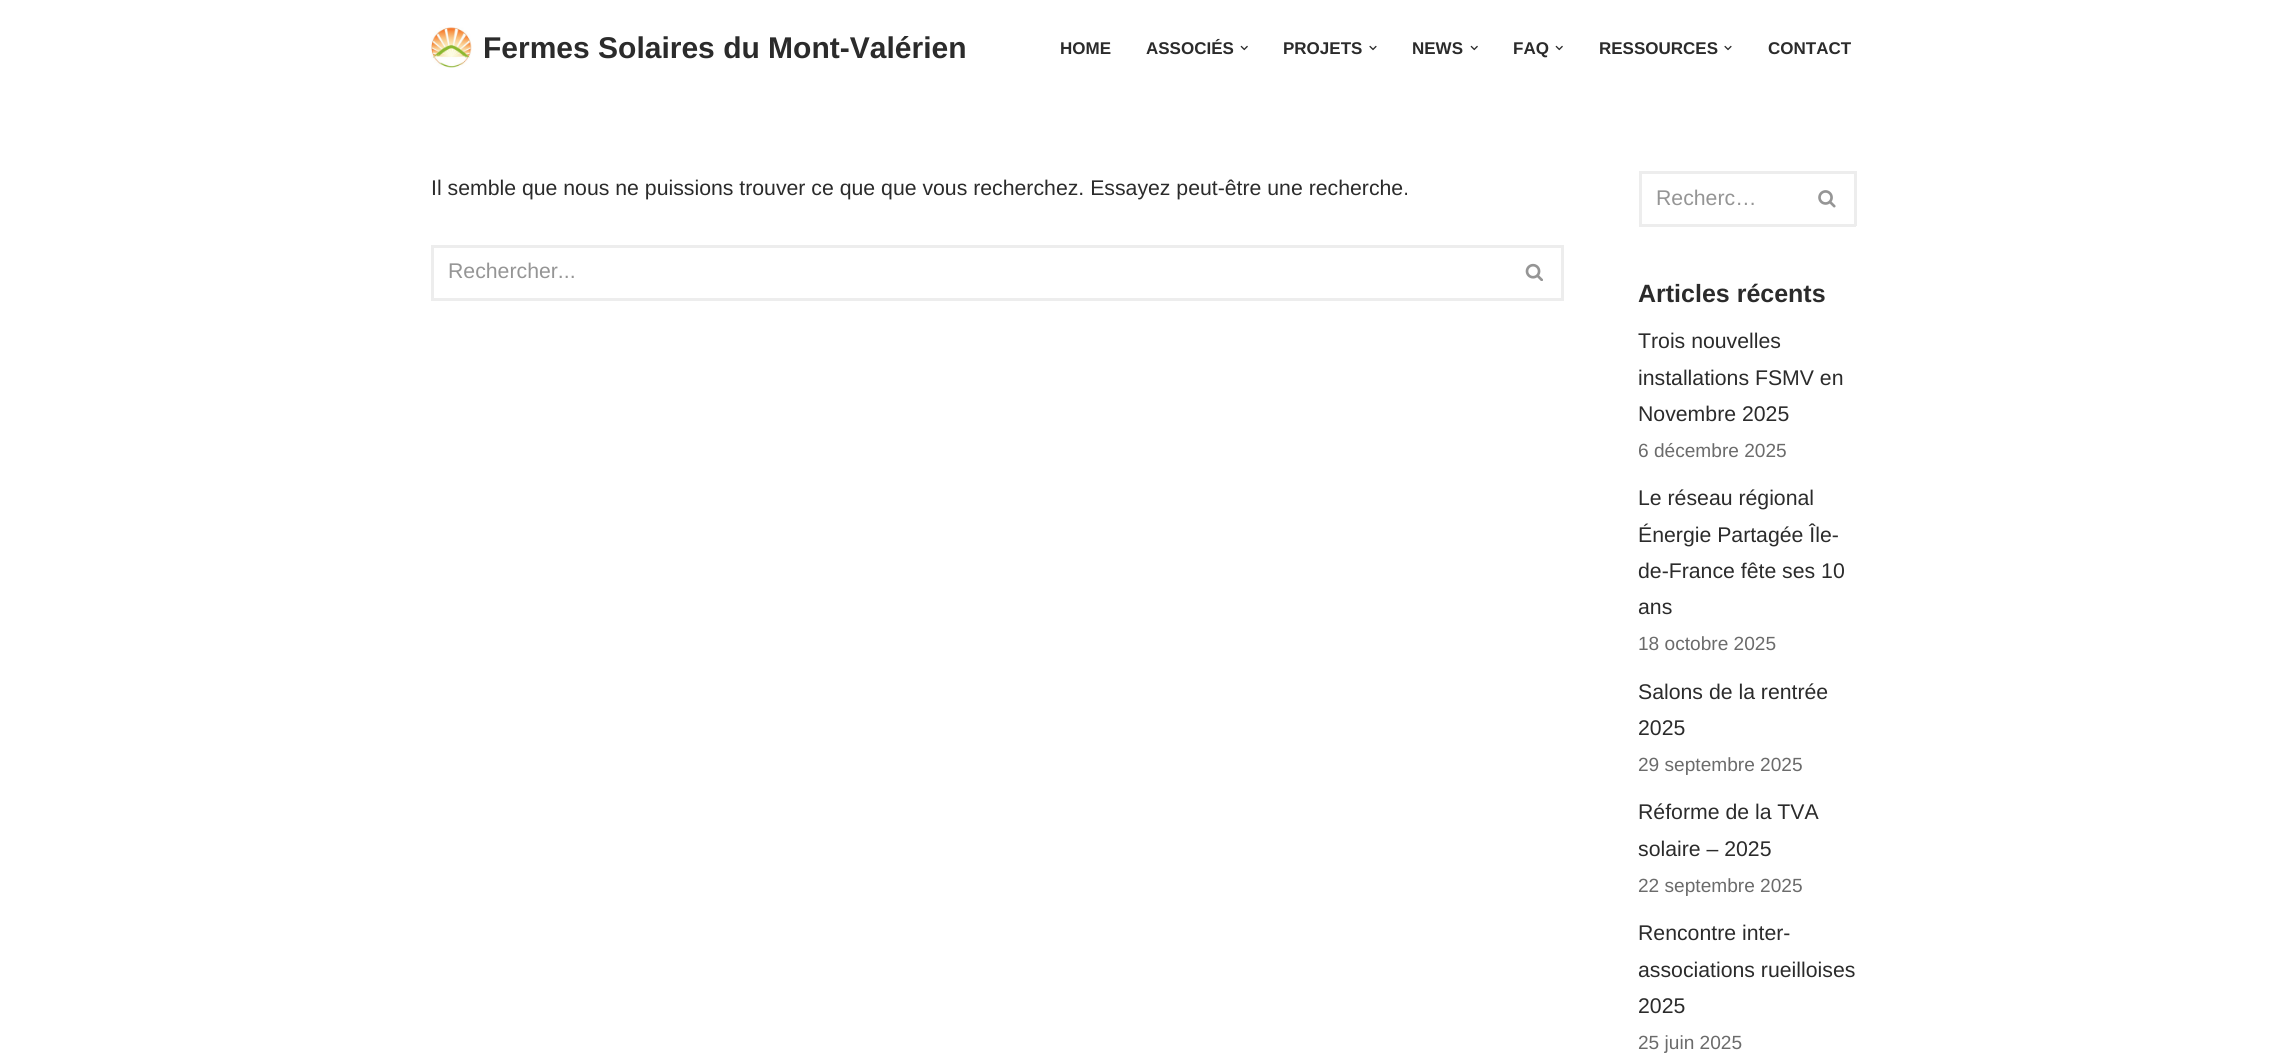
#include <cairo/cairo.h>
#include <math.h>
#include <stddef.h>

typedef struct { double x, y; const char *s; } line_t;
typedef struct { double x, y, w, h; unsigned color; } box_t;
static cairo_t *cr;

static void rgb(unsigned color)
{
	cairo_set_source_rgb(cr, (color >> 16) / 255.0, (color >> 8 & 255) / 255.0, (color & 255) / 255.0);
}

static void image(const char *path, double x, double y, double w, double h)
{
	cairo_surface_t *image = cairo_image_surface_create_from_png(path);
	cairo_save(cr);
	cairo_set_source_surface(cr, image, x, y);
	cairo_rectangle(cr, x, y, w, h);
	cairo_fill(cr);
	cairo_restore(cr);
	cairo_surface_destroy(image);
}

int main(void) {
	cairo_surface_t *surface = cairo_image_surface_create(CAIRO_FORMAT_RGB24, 2286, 1060);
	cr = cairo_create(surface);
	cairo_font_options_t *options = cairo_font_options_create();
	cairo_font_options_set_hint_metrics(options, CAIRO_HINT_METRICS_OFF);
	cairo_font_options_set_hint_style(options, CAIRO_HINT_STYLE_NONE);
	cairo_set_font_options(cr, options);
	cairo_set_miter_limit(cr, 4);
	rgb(0xffffff);
	cairo_paint(cr);
	image("img/1.png", 431, 27, 41, 41);
	image("img/2.png", 1240, 45, 8, 6);
	image("img/3.png", 1369, 45, 8, 6);
	image("img/2.png", 1470, 45, 8, 6);
	image("img/2.png", 1555, 45, 8, 6);
	image("img/3.png", 1724, 45, 8, 6);
	{
		static const box_t items[] = {
			{431, 245, 1133, 3, 0xededed},
			{431, 298, 1077, 3, 0xededed},
			{431, 245, 3, 55, 0xededed},
			{1561, 245, 3, 55, 0xededed},
			{1508, 298, 56, 3, 0xededed},
		};
		for (size_t i = 0; i < sizeof items / sizeof *items; i++) {
			rgb(items[i].color);
			cairo_rectangle(cr, items[i].x, items[i].y, items[i].w, items[i].h);
			cairo_fill(cr);
		}
	}
	image("img/4.png", 1525, 263, 18, 18);
	{
		static const box_t items[] = {
			{1639, 171, 217, 3, 0xededed},
			{1639, 224, 161, 3, 0xededed},
			{1639, 171, 3, 55, 0xededed},
			{1854, 171, 3, 55, 0xededed},
			{1800, 224, 56, 3, 0xededed},
		};
		for (size_t i = 0; i < sizeof items / sizeof *items; i++) {
			rgb(items[i].color);
			cairo_rectangle(cr, items[i].x, items[i].y, items[i].w, items[i].h);
			cairo_fill(cr);
		}
	}
	image("img/5.png", 1818, 190, 18, 18);
	cairo_select_font_face(cr, "Liberation Sans", CAIRO_FONT_SLANT_NORMAL, CAIRO_FONT_WEIGHT_BOLD);
	cairo_set_font_size(cr, 30);
	rgb(0x2b2b2b);
	cairo_move_to(cr, 483, 58);
	cairo_show_text(cr, "Fermes Solaires du Mont-Valérien");
	cairo_set_font_size(cr, 17);
	{
		static const line_t items[] = {
			{1060, 54, "HOME"},
			{1146, 54, "ASSOCIÉS"},
			{1283, 54, "PROJETS"},
			{1412, 54, "NEWS"},
			{1513, 54, "FAQ"},
			{1599, 54, "RESSOURCES"},
			{1768, 54, "CONTACT"},
		};
		for (size_t i = 0; i < sizeof items / sizeof *items; i++) {
			cairo_move_to(cr, items[i].x, items[i].y);
			cairo_show_text(cr, items[i].s);
		}
	}
	cairo_select_font_face(cr, "Liberation Sans", CAIRO_FONT_SLANT_NORMAL, CAIRO_FONT_WEIGHT_NORMAL);
	cairo_set_font_size(cr, 21.25);
	cairo_move_to(cr, 431, 195);
	cairo_show_text(cr, "Il semble que nous ne puissions trouver ce que que vous recherchez. Essayez peut-être une recherche.");
	rgb(0x959595);
	cairo_move_to(cr, 448, 278);
	cairo_show_text(cr, "Rechercher...");
	cairo_move_to(cr, 1656, 205);
	cairo_show_text(cr, "Recherc…");
	cairo_select_font_face(cr, "Liberation Sans", CAIRO_FONT_SLANT_NORMAL, CAIRO_FONT_WEIGHT_BOLD);
	cairo_set_font_size(cr, 25);
	rgb(0x2b2b2b);
	cairo_move_to(cr, 1638, 302);
	cairo_show_text(cr, "Articles récents");
	cairo_select_font_face(cr, "Liberation Sans", CAIRO_FONT_SLANT_NORMAL, CAIRO_FONT_WEIGHT_NORMAL);
	cairo_set_font_size(cr, 21.25);
	{
		static const line_t items[] = {
			{1638, 348, "Trois nouvelles"},
			{1638, 385, "installations FSMV en"},
			{1638, 421, "Novembre 2025"},
		};
		for (size_t i = 0; i < sizeof items / sizeof *items; i++) {
			cairo_move_to(cr, items[i].x, items[i].y);
			cairo_show_text(cr, items[i].s);
		}
	}
	cairo_set_font_size(cr, 19.1);
	rgb(0x6b6b6b);
	cairo_move_to(cr, 1638, 457);
	cairo_show_text(cr, "6 décembre 2025");
	cairo_set_font_size(cr, 21.25);
	rgb(0x2b2b2b);
	{
		static const line_t items[] = {
			{1638, 505, "Le réseau régional"},
			{1638, 542, "Énergie Partagée Île-"},
			{1638, 578, "de-France fête ses 10"},
			{1638, 614, "ans"},
		};
		for (size_t i = 0; i < sizeof items / sizeof *items; i++) {
			cairo_move_to(cr, items[i].x, items[i].y);
			cairo_show_text(cr, items[i].s);
		}
	}
	cairo_set_font_size(cr, 19.1);
	rgb(0x6b6b6b);
	cairo_move_to(cr, 1638, 650);
	cairo_show_text(cr, "18 octobre 2025");
	cairo_set_font_size(cr, 21.25);
	rgb(0x2b2b2b);
	cairo_move_to(cr, 1638, 699);
	cairo_show_text(cr, "Salons de la rentrée");
	cairo_move_to(cr, 1638, 735);
	cairo_show_text(cr, "2025");
	cairo_set_font_size(cr, 19.1);
	rgb(0x6b6b6b);
	cairo_move_to(cr, 1638, 771);
	cairo_show_text(cr, "29 septembre 2025");
	cairo_set_font_size(cr, 21.25);
	rgb(0x2b2b2b);
	cairo_move_to(cr, 1638, 819);
	cairo_show_text(cr, "Réforme de la TVA");
	cairo_move_to(cr, 1638, 856);
	cairo_show_text(cr, "solaire – 2025");
	cairo_set_font_size(cr, 19.1);
	rgb(0x6b6b6b);
	cairo_move_to(cr, 1638, 892);
	cairo_show_text(cr, "22 septembre 2025");
	cairo_set_font_size(cr, 21.25);
	rgb(0x2b2b2b);
	{
		static const line_t items[] = {
			{1638, 940, "Rencontre inter-"},
			{1638, 977, "associations rueilloises"},
			{1638, 1013, "2025"},
		};
		for (size_t i = 0; i < sizeof items / sizeof *items; i++) {
			cairo_move_to(cr, items[i].x, items[i].y);
			cairo_show_text(cr, items[i].s);
		}
	}
	cairo_set_font_size(cr, 19.1);
	rgb(0x6b6b6b);
	cairo_move_to(cr, 1638, 1049);
	cairo_show_text(cr, "25 juin 2025");
	cairo_surface_write_to_png(surface, "page.png");
	cairo_font_options_destroy(options);
	cairo_destroy(cr);
	cairo_surface_destroy(surface);
	return 0;
}
